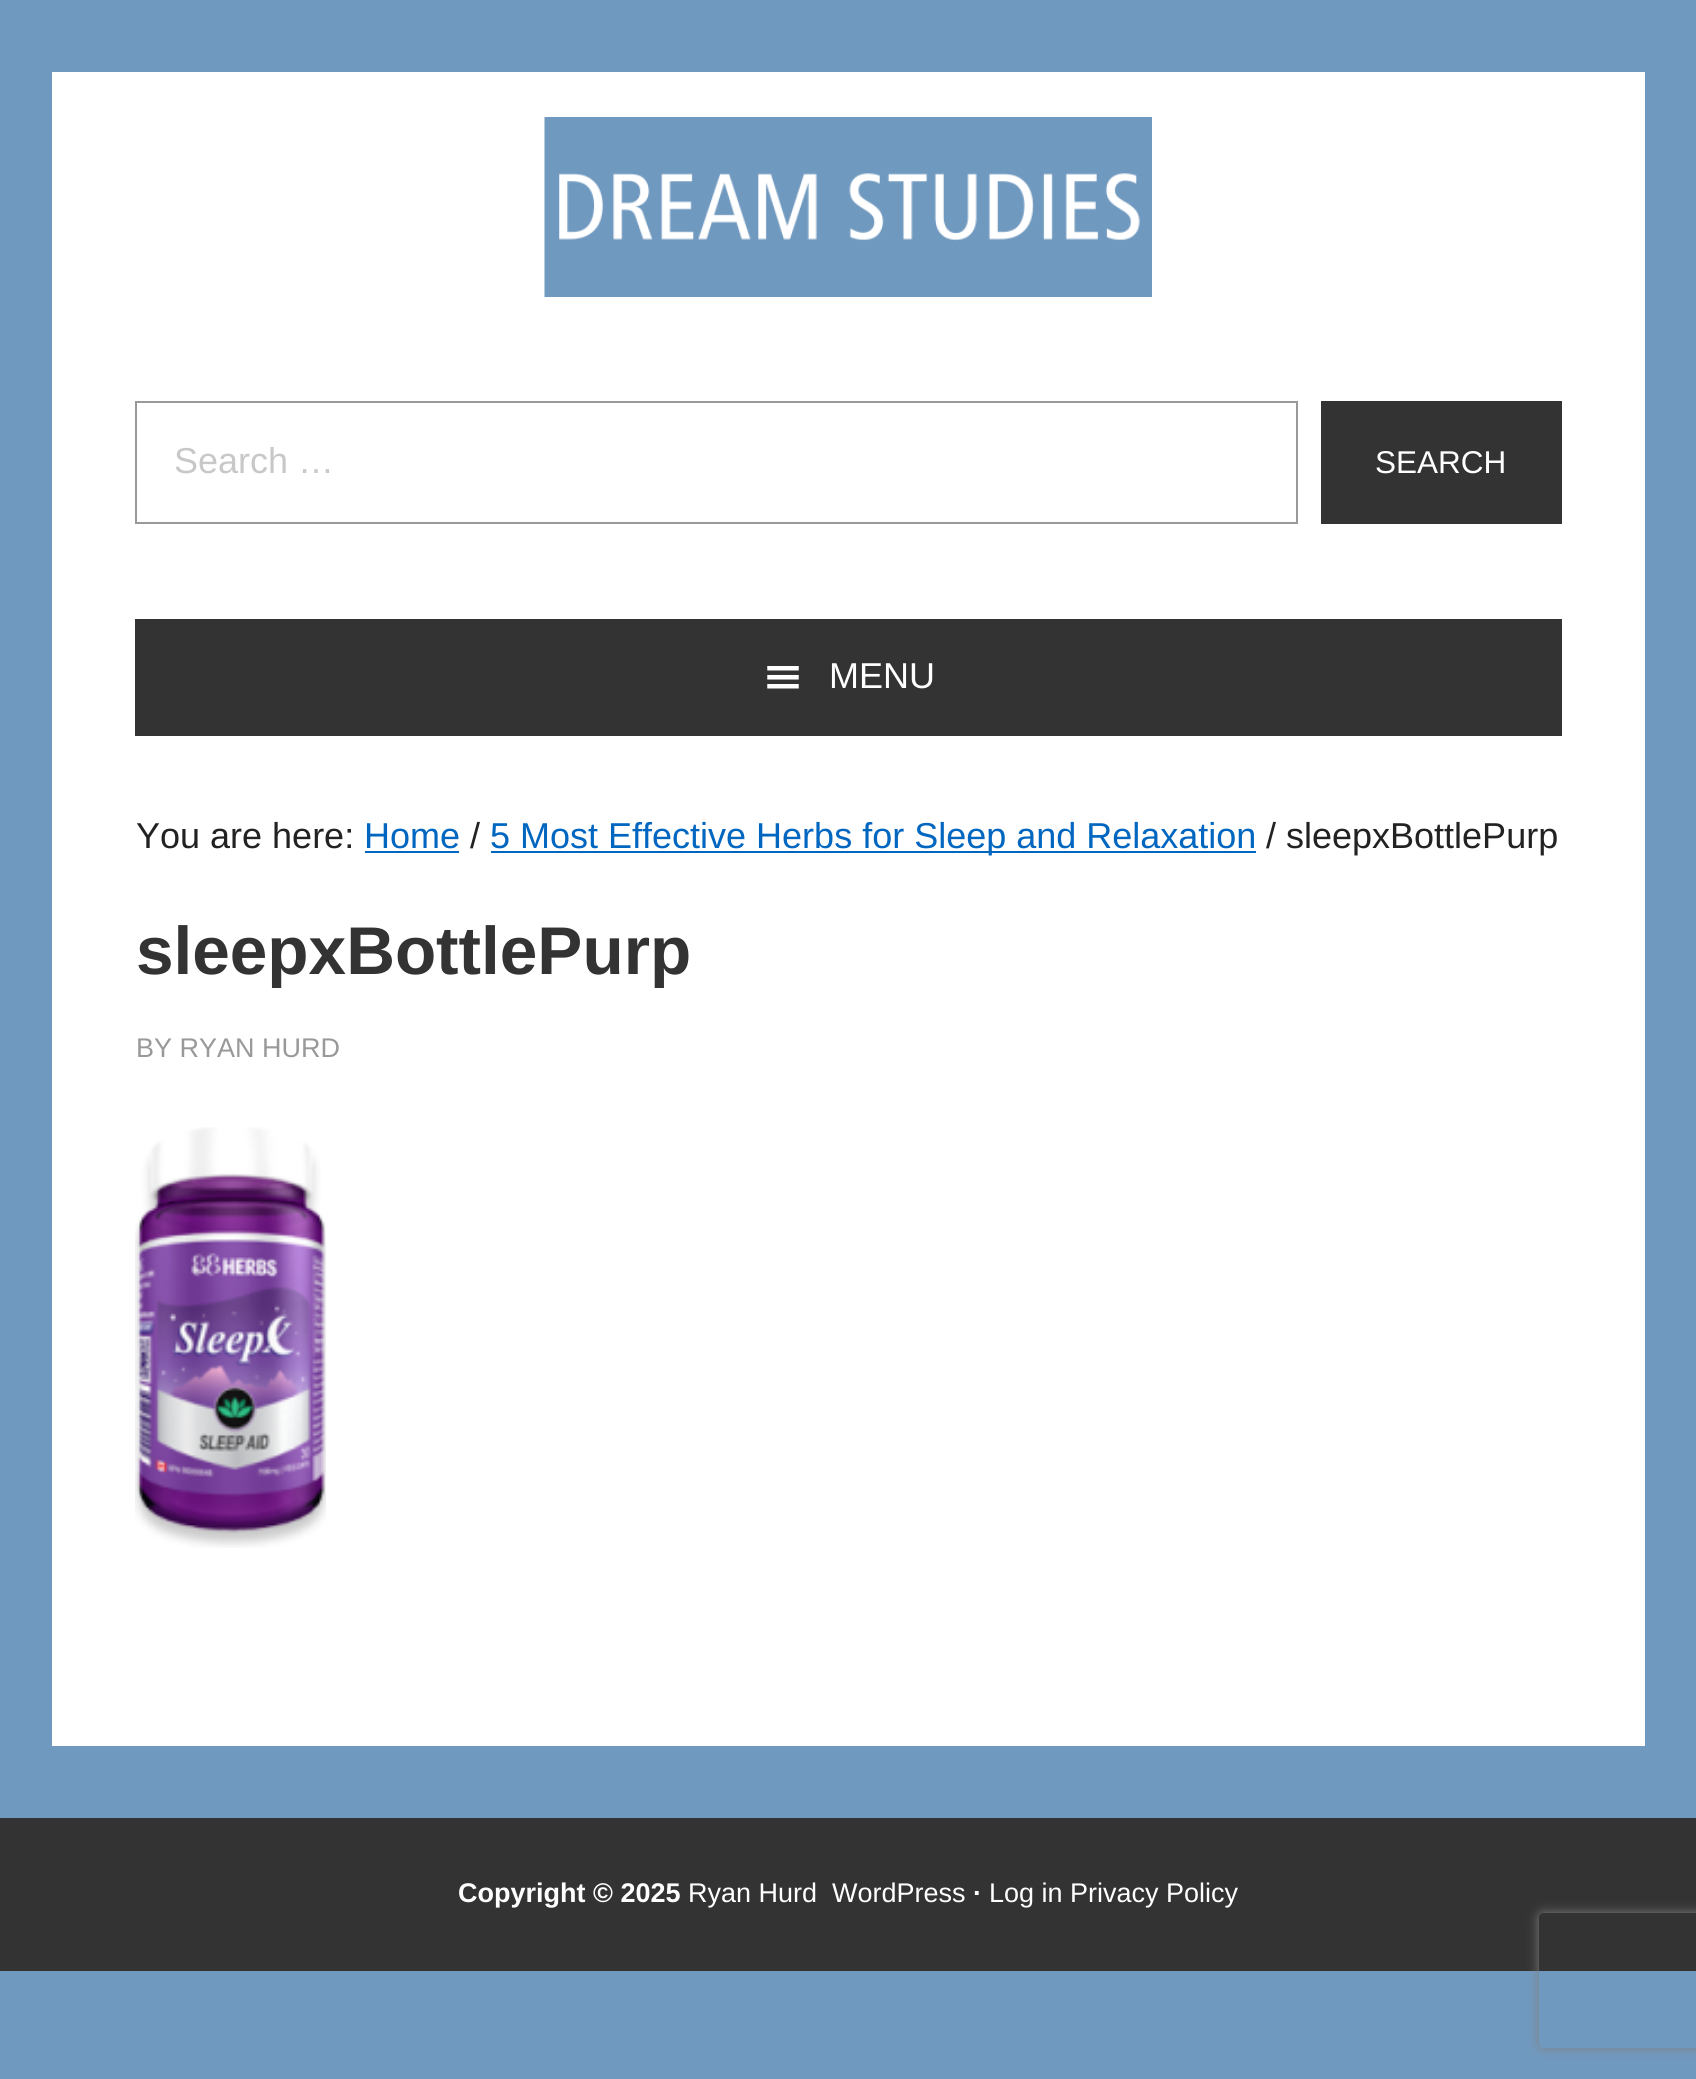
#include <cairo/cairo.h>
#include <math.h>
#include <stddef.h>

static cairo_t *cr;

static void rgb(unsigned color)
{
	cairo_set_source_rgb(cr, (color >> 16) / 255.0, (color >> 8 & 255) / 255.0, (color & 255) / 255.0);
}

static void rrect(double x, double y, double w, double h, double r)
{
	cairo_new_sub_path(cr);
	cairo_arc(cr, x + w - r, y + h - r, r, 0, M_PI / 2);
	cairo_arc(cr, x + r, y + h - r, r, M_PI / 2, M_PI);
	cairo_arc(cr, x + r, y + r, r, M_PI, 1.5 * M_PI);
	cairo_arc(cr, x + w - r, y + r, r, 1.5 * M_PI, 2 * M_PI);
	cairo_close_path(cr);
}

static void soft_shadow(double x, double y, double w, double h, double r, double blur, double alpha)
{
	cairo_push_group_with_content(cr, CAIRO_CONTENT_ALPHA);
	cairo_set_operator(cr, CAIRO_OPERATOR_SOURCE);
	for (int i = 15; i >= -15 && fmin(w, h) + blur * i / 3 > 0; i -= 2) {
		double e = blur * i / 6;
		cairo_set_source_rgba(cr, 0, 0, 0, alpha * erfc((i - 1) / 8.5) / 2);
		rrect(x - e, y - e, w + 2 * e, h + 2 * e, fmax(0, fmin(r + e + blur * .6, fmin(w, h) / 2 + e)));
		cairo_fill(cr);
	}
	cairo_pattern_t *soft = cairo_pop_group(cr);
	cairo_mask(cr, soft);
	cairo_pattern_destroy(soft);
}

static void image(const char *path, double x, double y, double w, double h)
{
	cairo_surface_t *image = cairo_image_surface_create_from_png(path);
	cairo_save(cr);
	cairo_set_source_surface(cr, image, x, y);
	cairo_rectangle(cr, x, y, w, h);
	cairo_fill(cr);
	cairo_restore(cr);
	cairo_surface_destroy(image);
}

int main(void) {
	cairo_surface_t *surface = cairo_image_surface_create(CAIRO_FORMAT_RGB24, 1696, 2079);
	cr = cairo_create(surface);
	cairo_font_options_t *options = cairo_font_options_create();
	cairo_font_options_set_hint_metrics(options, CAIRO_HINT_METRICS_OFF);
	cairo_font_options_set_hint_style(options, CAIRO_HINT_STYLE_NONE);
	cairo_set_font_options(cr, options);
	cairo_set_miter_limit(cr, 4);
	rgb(0x7099bf);
	cairo_paint(cr);
	rgb(0xffffff);
	cairo_rectangle(cr, 52, 72, 1593, 1674);
	cairo_fill(cr);
	image("img/1.png", 544, 117, 608, 180);
	cairo_rectangle(cr, 136, 402, 1161, 121);
	rgb(0x999999);
	cairo_stroke(cr);
	rgb(0x333333);
	cairo_rectangle(cr, 1321, 401, 241, 123);
	cairo_fill(cr);
	cairo_rectangle(cr, 135, 619, 1427, 117);
	cairo_fill(cr);
	image("img/2.png", 767, 666, 32, 23);
	rgb(0x0066bf);
	cairo_rectangle(cr, 365, 851, 94, 2);
	cairo_fill(cr);
	cairo_rectangle(cr, 491, 851, 765, 2);
	cairo_fill(cr);
	image("img/3.png", 135, 1127, 191, 421);
	rgb(0x333333);
	cairo_rectangle(cr, 0, 1818, 1696, 153);
	cairo_fill(cr);
	cairo_save(cr);
	cairo_set_fill_rule(cr, CAIRO_FILL_RULE_EVEN_ODD);
	cairo_new_path(cr);
	cairo_move_to(cr, 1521, 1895);
	cairo_line_to(cr, 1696, 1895);
	cairo_line_to(cr, 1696, 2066);
	cairo_line_to(cr, 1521, 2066);
	cairo_close_path(cr);
	cairo_move_to(cr, 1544, 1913);
	cairo_line_to(cr, 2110, 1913);
	cairo_curve_to(cr, 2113, 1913, 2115, 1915, 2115, 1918);
	cairo_line_to(cr, 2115, 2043);
	cairo_curve_to(cr, 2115, 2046, 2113, 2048, 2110, 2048);
	cairo_line_to(cr, 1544, 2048);
	cairo_curve_to(cr, 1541, 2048, 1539, 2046, 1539, 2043);
	cairo_line_to(cr, 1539, 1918);
	cairo_curve_to(cr, 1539, 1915, 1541, 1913, 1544, 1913);
	cairo_close_path(cr);
	cairo_clip(cr);
	rgb(0x808080);
	soft_shadow(1539, 1913, 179, 135, 5, 5.5, 1);
	cairo_restore(cr);
	cairo_select_font_face(cr, "Liberation Sans", CAIRO_FONT_SLANT_NORMAL, CAIRO_FONT_WEIGHT_NORMAL);
	cairo_set_font_size(cr, 36);
	rgb(0xc8c8c8);
	cairo_move_to(cr, 174, 473);
	cairo_show_text(cr, "Search …");
	cairo_set_font_size(cr, 31.5);
	rgb(0xffffff);
	cairo_move_to(cr, 1375, 473);
	cairo_show_text(cr, "SEARCH");
	cairo_set_font_size(cr, 36);
	cairo_move_to(cr, 829, 688);
	cairo_show_text(cr, "MENU");
	rgb(0x222222);
	cairo_move_to(cr, 136, 848);
	cairo_show_text(cr, "You are here:");
	rgb(0x0066bf);
	cairo_move_to(cr, 364, 848);
	cairo_show_text(cr, "Home");
	rgb(0x222222);
	cairo_move_to(cr, 470, 848);
	cairo_show_text(cr, "/");
	rgb(0x0066bf);
	cairo_move_to(cr, 490, 848);
	cairo_show_text(cr, "5 Most Effective Herbs for Sleep and Relaxation");
	rgb(0x222222);
	cairo_move_to(cr, 1266, 848);
	cairo_show_text(cr, "/ sleepxBottlePurp");
	cairo_select_font_face(cr, "Liberation Sans", CAIRO_FONT_SLANT_NORMAL, CAIRO_FONT_WEIGHT_BOLD);
	cairo_set_font_size(cr, 67.5);
	rgb(0x333333);
	cairo_move_to(cr, 136, 974);
	cairo_show_text(cr, "sleepxBottlePurp");
	cairo_select_font_face(cr, "Liberation Sans", CAIRO_FONT_SLANT_NORMAL, CAIRO_FONT_WEIGHT_NORMAL);
	cairo_set_font_size(cr, 27);
	rgb(0x999999);
	cairo_move_to(cr, 136, 1057);
	cairo_show_text(cr, "BY RYAN HURD");
	cairo_select_font_face(cr, "Liberation Sans", CAIRO_FONT_SLANT_NORMAL, CAIRO_FONT_WEIGHT_BOLD);
	rgb(0xffffff);
	cairo_move_to(cr, 458, 1902);
	cairo_show_text(cr, "Copyright © 2025");
	cairo_select_font_face(cr, "Liberation Sans", CAIRO_FONT_SLANT_NORMAL, CAIRO_FONT_WEIGHT_NORMAL);
	cairo_move_to(cr, 688, 1902);
	cairo_show_text(cr, "Ryan Hurd");
	cairo_move_to(cr, 832, 1902);
	cairo_show_text(cr, "WordPress");
	cairo_select_font_face(cr, "Liberation Sans", CAIRO_FONT_SLANT_NORMAL, CAIRO_FONT_WEIGHT_BOLD);
	cairo_move_to(cr, 973, 1902);
	cairo_show_text(cr, "·");
	cairo_select_font_face(cr, "Liberation Sans", CAIRO_FONT_SLANT_NORMAL, CAIRO_FONT_WEIGHT_NORMAL);
	cairo_move_to(cr, 989, 1902);
	cairo_show_text(cr, "Log in Privacy Policy");
	cairo_surface_write_to_png(surface, "page.png");
	cairo_font_options_destroy(options);
	cairo_destroy(cr);
	cairo_surface_destroy(surface);
	return 0;
}
